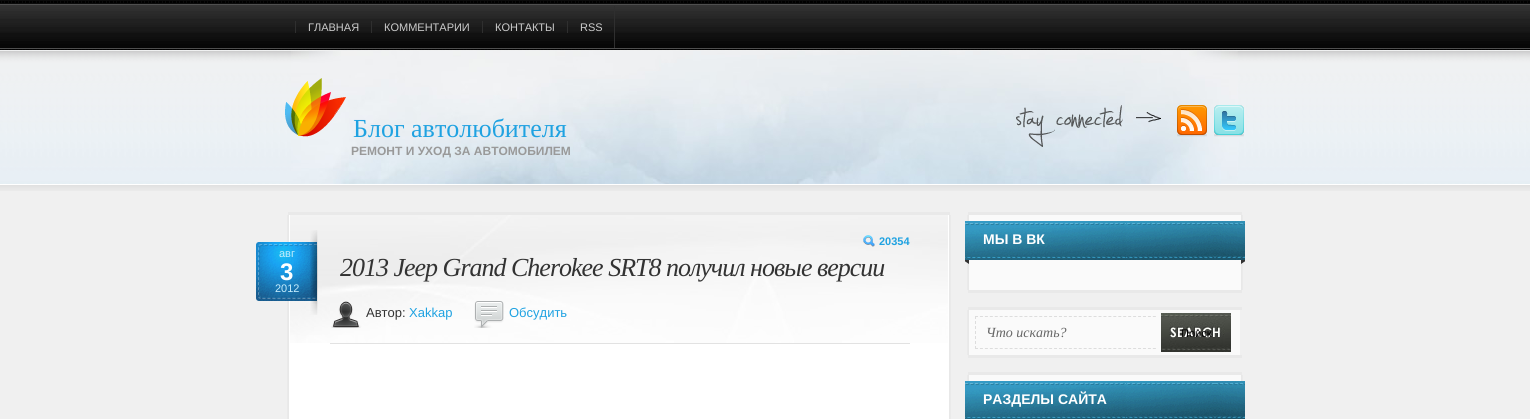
#include <cairo/cairo.h>
#include <math.h>
#include <stddef.h>

typedef struct { double x, y; const char *s; } line_t;
typedef struct { double x, y, w, h; unsigned color; } box_t;
static cairo_t *cr;

static void rgb(unsigned color)
{
	cairo_set_source_rgb(cr, (color >> 16) / 255.0, (color >> 8 & 255) / 255.0, (color & 255) / 255.0);
}

static void tracked(double x, double y, const char *s, double letter, double word)
{
	cairo_move_to(cr, x, y);
	while (*s) {
		char ch[5] = {0};
		int n = 0;
		do ch[n++] = *s++; while ((*s & 0xC0) == 0x80);
		cairo_show_text(cr, ch);
		cairo_rel_move_to(cr, letter + word * (*ch == ' '), 0);
	}
}

static void image(const char *path, double x, double y, double w, double h)
{
	cairo_surface_t *image = cairo_image_surface_create_from_png(path);
	cairo_save(cr);
	cairo_set_source_surface(cr, image, x, y);
	cairo_rectangle(cr, x, y, w, h);
	cairo_fill(cr);
	cairo_restore(cr);
	cairo_surface_destroy(image);
}

int main(void) {
	cairo_surface_t *surface = cairo_image_surface_create(CAIRO_FORMAT_RGB24, 1530, 419);
	cr = cairo_create(surface);
	cairo_font_options_t *options = cairo_font_options_create();
	cairo_font_options_set_hint_metrics(options, CAIRO_HINT_METRICS_OFF);
	cairo_font_options_set_hint_style(options, CAIRO_HINT_STYLE_NONE);
	cairo_set_font_options(cr, options);
	cairo_set_miter_limit(cr, 4);
	rgb(0xf0f0f0);
	cairo_paint(cr);
	image("img/1.png", 0, 0, 1530, 191);
	image("img/2.png", 291, 51, 947, 133);
	{
		static const box_t items[] = {
			{614, 6, 1, 42, 0x2f2f2f},
			{295, 21, 1, 12, 0x2f2f2f},
			{371, 21, 1, 12, 0x2f2f2f},
			{482, 21, 1, 12, 0x2f2f2f},
			{567, 21, 1, 12, 0x2f2f2f},
		};
		for (size_t i = 0; i < sizeof items / sizeof *items; i++) {
			rgb(items[i].color);
			cairo_rectangle(cr, items[i].x, items[i].y, items[i].w, items[i].h);
			cairo_fill(cr);
		}
	}
	image("img/3.png", 285, 78, 61, 59);
	image("img/4.png", 1016, 105, 145, 42);
	image("img/5.png", 1177, 105, 30, 32);
	image("img/6.png", 1214, 105, 30, 32);
	rgb(0xe9e9e9);
	cairo_rectangle(cr, 288, 212, 662, 3);
	cairo_fill(cr);
	image("img/7.png", 287, 215, 664, 204);
	image("img/8.png", 290, 215, 658, 128);
	image("img/9.png", 863, 235, 12, 12);
	image("img/10.png", 256, 230, 62, 85);
	rgb(0xe2e2e2);
	cairo_rectangle(cr, 330, 343, 580, 1);
	cairo_fill(cr);
	image("img/11.png", 331, 301, 30, 27);
	image("img/12.png", 474, 301, 30, 27);
	rgb(0xe9e9e9);
	cairo_rectangle(cr, 968, 212, 274, 3);
	cairo_fill(cr);
	image("img/13.png", 967, 215, 276, 75);
	image("img/14.png", 965, 221, 280, 43);
	cairo_rectangle(cr, 968, 290, 274, 3);
	cairo_fill(cr);
	cairo_rectangle(cr, 968, 307, 274, 3);
	cairo_fill(cr);
	image("img/15.png", 967, 310, 273, 45);
	cairo_new_path(cr);
	cairo_move_to(cr, 975, 316.5);
	cairo_line_to(cr, 1156, 316.5);
	rgb(0xdddddd);
	cairo_set_line_width(cr, 1);
	cairo_set_dash(cr, (double[]){3, 1.94}, 2, 0);
	cairo_stroke(cr);
	cairo_new_path(cr);
	cairo_move_to(cr, 975, 348.5);
	cairo_line_to(cr, 1156, 348.5);
	cairo_stroke(cr);
	cairo_new_path(cr);
	cairo_move_to(cr, 975.5, 316);
	cairo_line_to(cr, 975.5, 349);
	cairo_set_dash(cr, (double[]){3, 2}, 2, 0);
	cairo_stroke(cr);
	image("img/16.png", 1161, 313, 70, 39);
	rgb(0xe9e9e9);
	cairo_rectangle(cr, 968, 355, 274, 3);
	cairo_fill(cr);
	cairo_rectangle(cr, 968, 372, 274, 3);
	cairo_fill(cr);
	image("img/17.png", 967, 375, 276, 6);
	image("img/18.png", 965, 381, 280, 38);
	cairo_select_font_face(cr, "Liberation Sans", CAIRO_FONT_SLANT_NORMAL, CAIRO_FONT_WEIGHT_NORMAL);
	cairo_set_font_size(cr, 11);
	rgb(0xcccccc);
	{
		static const line_t items[] = {
			{308, 31, "ГЛАВНАЯ"},
			{384, 31, "КОММЕНТАРИИ"},
			{495, 31, "КОНТАКТЫ"},
			{580, 31, "RSS"},
		};
		for (size_t i = 0; i < sizeof items / sizeof *items; i++) {
			cairo_move_to(cr, items[i].x, items[i].y);
			cairo_show_text(cr, items[i].s);
		}
	}
	cairo_select_font_face(cr, "Liberation Serif", CAIRO_FONT_SLANT_NORMAL, CAIRO_FONT_WEIGHT_NORMAL);
	cairo_set_font_size(cr, 26);
	rgb(0x1fa2e1);
	cairo_move_to(cr, 353, 137);
	cairo_show_text(cr, "Блог автолюбителя");
	cairo_select_font_face(cr, "Liberation Sans", CAIRO_FONT_SLANT_NORMAL, CAIRO_FONT_WEIGHT_BOLD);
	cairo_set_font_size(cr, 12);
	rgb(0x999999);
	cairo_move_to(cr, 351, 155);
	cairo_show_text(cr, "РЕМОНТ И УХОД ЗА АВТОМОБИЛЕМ");
	cairo_set_font_size(cr, 11);
	rgb(0x1fa2e1);
	cairo_move_to(cr, 879, 245);
	cairo_show_text(cr, "20354");
	cairo_select_font_face(cr, "Liberation Sans", CAIRO_FONT_SLANT_NORMAL, CAIRO_FONT_WEIGHT_NORMAL);
	rgb(0xc5ecfc);
	cairo_move_to(cr, 279, 257);
	cairo_show_text(cr, "авг");
	cairo_select_font_face(cr, "Liberation Sans", CAIRO_FONT_SLANT_NORMAL, CAIRO_FONT_WEIGHT_BOLD);
	cairo_set_font_size(cr, 24);
	rgb(0xffffff);
	cairo_move_to(cr, 280, 280);
	cairo_show_text(cr, "3");
	cairo_select_font_face(cr, "Liberation Sans", CAIRO_FONT_SLANT_NORMAL, CAIRO_FONT_WEIGHT_NORMAL);
	cairo_set_font_size(cr, 11);
	rgb(0xc5ecfc);
	cairo_move_to(cr, 275, 292);
	cairo_show_text(cr, "2012");
	cairo_select_font_face(cr, "Liberation Serif", CAIRO_FONT_SLANT_ITALIC, CAIRO_FONT_WEIGHT_NORMAL);
	cairo_set_font_size(cr, 26);
	rgb(0x333333);
	tracked(340, 276, "2013 Jeep Grand Cherokee SRT8 получил новые версии", -1, 0);
	cairo_select_font_face(cr, "Liberation Sans", CAIRO_FONT_SLANT_NORMAL, CAIRO_FONT_WEIGHT_NORMAL);
	cairo_set_font_size(cr, 13);
	cairo_move_to(cr, 366, 317);
	cairo_show_text(cr, "Автор:");
	rgb(0x1fa2e1);
	cairo_move_to(cr, 409, 317);
	cairo_show_text(cr, "Xakkap");
	cairo_move_to(cr, 509, 317);
	cairo_show_text(cr, "Обсудить");
	cairo_select_font_face(cr, "Liberation Sans", CAIRO_FONT_SLANT_NORMAL, CAIRO_FONT_WEIGHT_BOLD);
	cairo_set_font_size(cr, 14);
	rgb(0xffffff);
	cairo_move_to(cr, 983, 244);
	cairo_show_text(cr, "МЫ В ВК");
	cairo_select_font_face(cr, "Liberation Serif", CAIRO_FONT_SLANT_ITALIC, CAIRO_FONT_WEIGHT_NORMAL);
	rgb(0x666666);
	cairo_move_to(cr, 986, 337);
	cairo_show_text(cr, "Что искать?");
	cairo_select_font_face(cr, "Liberation Sans", CAIRO_FONT_SLANT_NORMAL, CAIRO_FONT_WEIGHT_NORMAL);
	cairo_set_font_size(cr, 11);
	rgb(0x000000);
	cairo_move_to(cr, 1181, 337);
	cairo_show_text(cr, "Поиск");
	cairo_select_font_face(cr, "Liberation Sans", CAIRO_FONT_SLANT_NORMAL, CAIRO_FONT_WEIGHT_BOLD);
	cairo_set_font_size(cr, 14);
	rgb(0xffffff);
	cairo_move_to(cr, 983, 404);
	cairo_show_text(cr, "РАЗДЕЛЫ САЙТА");
	cairo_surface_write_to_png(surface, "page.png");
	cairo_font_options_destroy(options);
	cairo_destroy(cr);
	cairo_surface_destroy(surface);
	return 0;
}
